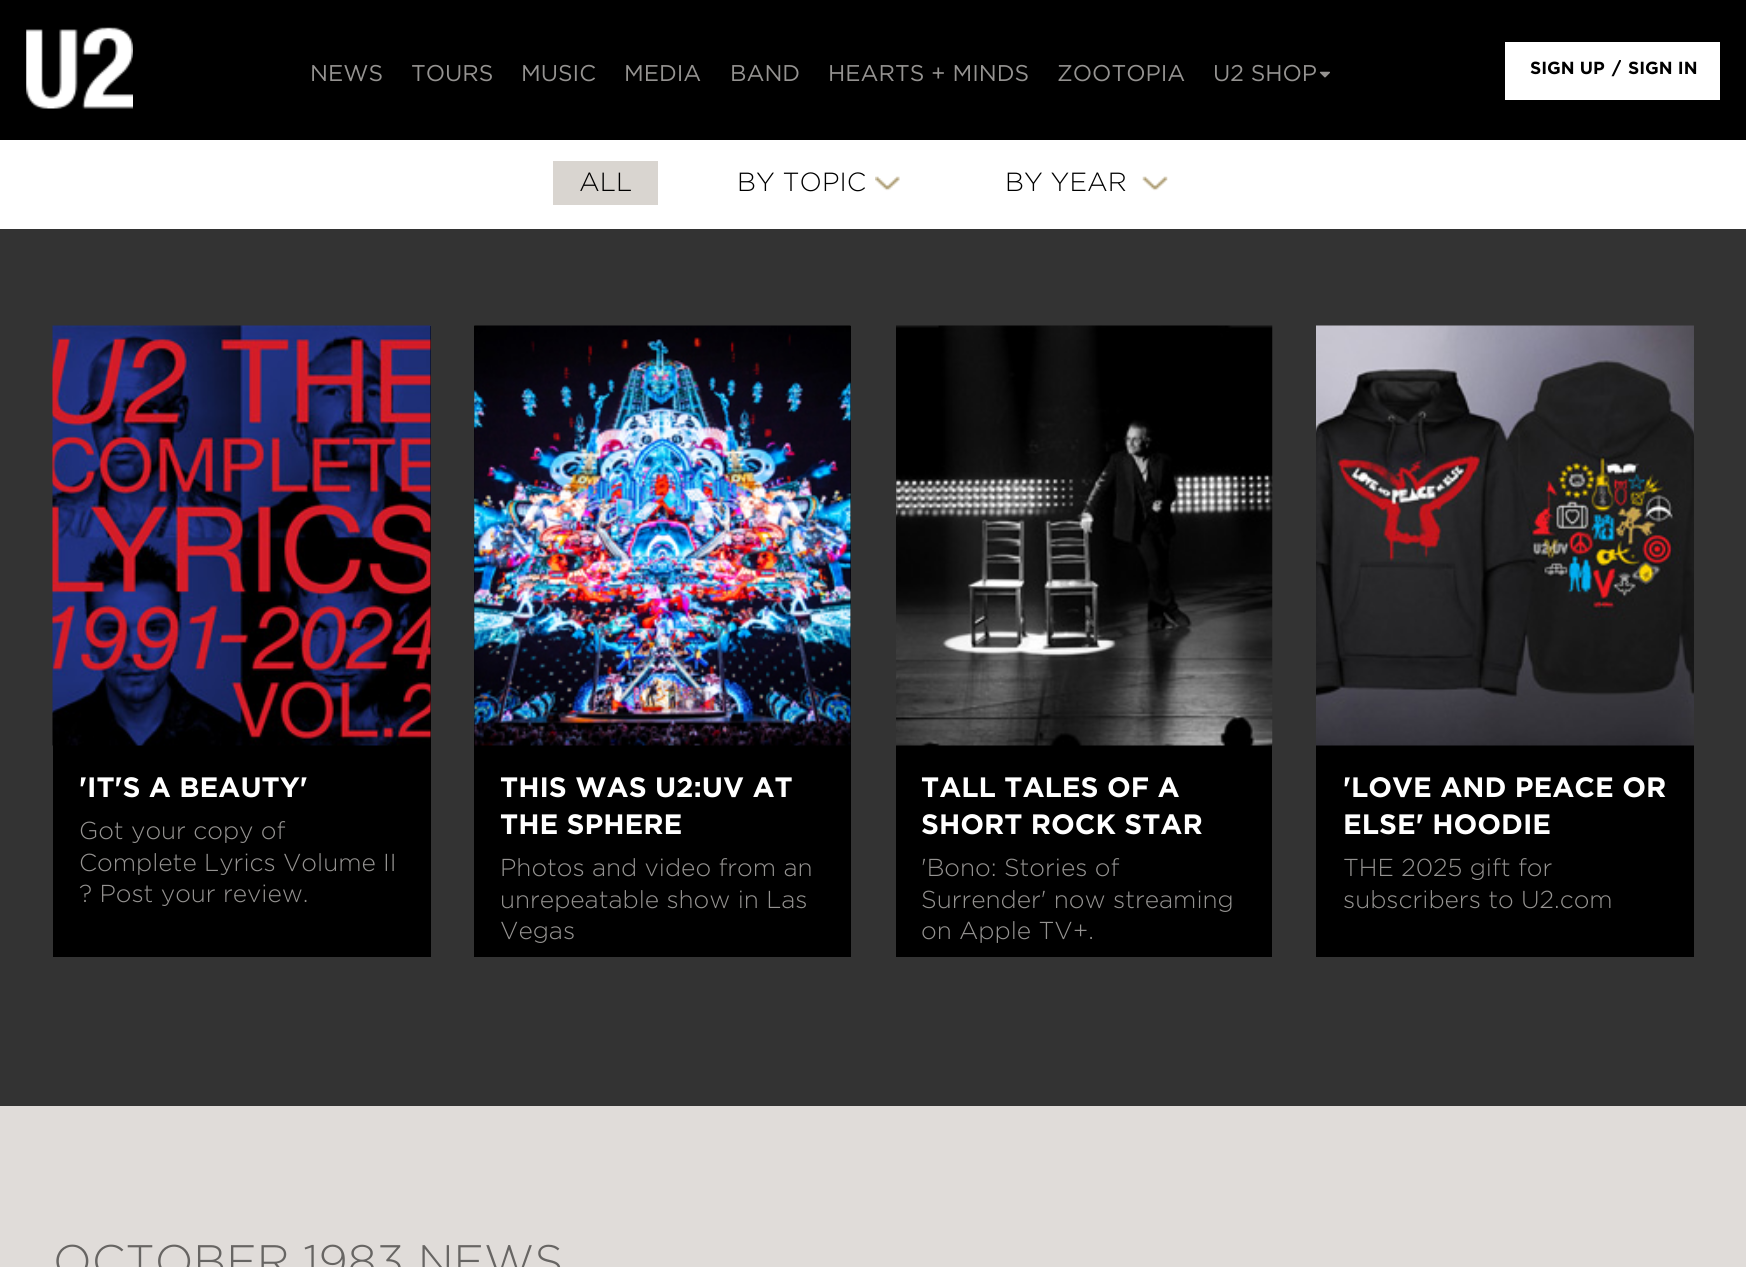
#include <cairo/cairo.h>
#include <math.h>
#include <stddef.h>

typedef struct { double x, y; const char *s; } line_t;
static cairo_t *cr;

static void rgb(unsigned color)
{
	cairo_set_source_rgb(cr, (color >> 16) / 255.0, (color >> 8 & 255) / 255.0, (color & 255) / 255.0);
}

static void image(const char *path, double x, double y, double w, double h)
{
	cairo_surface_t *image = cairo_image_surface_create_from_png(path);
	cairo_save(cr);
	cairo_set_source_surface(cr, image, x, y);
	cairo_rectangle(cr, x, y, w, h);
	cairo_fill(cr);
	cairo_restore(cr);
	cairo_surface_destroy(image);
}

int main(void) {
	cairo_surface_t *surface = cairo_image_surface_create(CAIRO_FORMAT_RGB24, 1746, 1267);
	cr = cairo_create(surface);
	cairo_font_options_t *options = cairo_font_options_create();
	cairo_font_options_set_hint_metrics(options, CAIRO_HINT_METRICS_OFF);
	cairo_font_options_set_hint_style(options, CAIRO_HINT_STYLE_NONE);
	cairo_set_font_options(cr, options);
	cairo_set_miter_limit(cr, 4);
	rgb(0xffffff);
	cairo_paint(cr);
	rgb(0x000000);
	cairo_rectangle(cr, 0, 0, 1746, 140);
	cairo_fill(cr);
	image("img/1.png", 26, 27, 107, 82);
	image("img/2.png", 1319, 71, 11, 7);
	rgb(0xffffff);
	cairo_rectangle(cr, 1505, 42, 215, 58);
	cairo_fill(cr);
	rgb(0xd9d5d0);
	cairo_rectangle(cr, 553, 161, 105, 44);
	cairo_fill(cr);
	image("img/3.png", 875, 176, 25, 15);
	image("img/4.png", 1142, 176, 26, 15);
	rgb(0x333333);
	cairo_rectangle(cr, 0, 229, 1746, 877);
	cairo_fill(cr);
	rgb(0x000000);
	cairo_rectangle(cr, 53, 326, 378, 631);
	cairo_fill(cr);
	image("img/5.png", 52, 325, 379, 421);
	cairo_rectangle(cr, 474, 326, 377, 631);
	cairo_fill(cr);
	image("img/6.png", 474, 325, 377, 421);
	cairo_rectangle(cr, 896, 745, 376, 212);
	cairo_fill(cr);
	image("img/7.png", 896, 325, 377, 421);
	cairo_rectangle(cr, 1316, 745, 378, 212);
	cairo_fill(cr);
	image("img/8.png", 1316, 325, 378, 421);
	rgb(0xe0dcd9);
	cairo_rectangle(cr, 0, 1106, 1746, 161);
	cairo_fill(cr);
	cairo_select_font_face(cr, "Gotham", CAIRO_FONT_SLANT_NORMAL, CAIRO_FONT_WEIGHT_NORMAL);
	cairo_set_font_size(cr, 22.75);
	rgb(0x959391);
	{
		static const line_t items[] = {
			{310, 81, "NEWS"},
			{411, 81, "TOURS"},
			{521, 81, "MUSIC"},
			{624, 81, "MEDIA"},
			{730, 81, "BAND"},
			{828, 81, "HEARTS + MINDS"},
			{1057, 81, "ZOOTOPIA"},
			{1213, 81, "U2 SHOP"},
		};
		for (size_t i = 0; i < sizeof items / sizeof *items; i++) {
			cairo_move_to(cr, items[i].x, items[i].y);
			cairo_show_text(cr, items[i].s);
		}
	}
	cairo_select_font_face(cr, "Gotham", CAIRO_FONT_SLANT_NORMAL, CAIRO_FONT_WEIGHT_BOLD);
	cairo_set_font_size(cr, 17.5);
	rgb(0x000000);
	cairo_move_to(cr, 1530, 74);
	cairo_show_text(cr, "SIGN UP");
	cairo_move_to(cr, 1612, 74);
	cairo_show_text(cr, "/");
	rgb(0xffffff);
	cairo_rectangle(cr, 1621, 60, 1, 1);
	cairo_fill(cr);
	rgb(0x000000);
	cairo_move_to(cr, 1628, 74);
	cairo_show_text(cr, "SIGN IN");
	cairo_select_font_face(cr, "Gotham Light", CAIRO_FONT_SLANT_NORMAL, CAIRO_FONT_WEIGHT_NORMAL);
	cairo_set_font_size(cr, 26.25);
	{
		static const line_t items[] = {
			{579, 191, "ALL"},
			{737, 191, "BY TOPIC"},
			{1005, 191, "BY YEAR"},
		};
		for (size_t i = 0; i < sizeof items / sizeof *items; i++) {
			cairo_move_to(cr, items[i].x, items[i].y);
			cairo_show_text(cr, items[i].s);
		}
	}
	cairo_select_font_face(cr, "Gotham", CAIRO_FONT_SLANT_NORMAL, CAIRO_FONT_WEIGHT_BOLD);
	cairo_set_font_size(cr, 28);
	rgb(0xffffff);
	cairo_move_to(cr, 79, 797);
	cairo_show_text(cr, "'IT'S A BEAUTY'");
	cairo_select_font_face(cr, "Gotham Light", CAIRO_FONT_SLANT_NORMAL, CAIRO_FONT_WEIGHT_NORMAL);
	cairo_set_font_size(cr, 24.5);
	rgb(0x959391);
	{
		static const line_t items[] = {
			{79, 839, "Got your copy of"},
			{79, 871, "Complete Lyrics Volume II"},
			{79, 902, "? Post your review."},
		};
		for (size_t i = 0; i < sizeof items / sizeof *items; i++) {
			cairo_move_to(cr, items[i].x, items[i].y);
			cairo_show_text(cr, items[i].s);
		}
	}
	cairo_select_font_face(cr, "Gotham", CAIRO_FONT_SLANT_NORMAL, CAIRO_FONT_WEIGHT_BOLD);
	cairo_set_font_size(cr, 28);
	rgb(0xffffff);
	cairo_move_to(cr, 500, 797);
	cairo_show_text(cr, "THIS WAS U2:UV AT");
	cairo_move_to(cr, 500, 834);
	cairo_show_text(cr, "THE SPHERE");
	cairo_select_font_face(cr, "Gotham Light", CAIRO_FONT_SLANT_NORMAL, CAIRO_FONT_WEIGHT_NORMAL);
	cairo_set_font_size(cr, 24.5);
	rgb(0x959391);
	{
		static const line_t items[] = {
			{500, 876, "Photos and video from an"},
			{500, 908, "unrepeatable show in Las"},
			{500, 939, "Vegas"},
		};
		for (size_t i = 0; i < sizeof items / sizeof *items; i++) {
			cairo_move_to(cr, items[i].x, items[i].y);
			cairo_show_text(cr, items[i].s);
		}
	}
	cairo_select_font_face(cr, "Gotham", CAIRO_FONT_SLANT_NORMAL, CAIRO_FONT_WEIGHT_BOLD);
	cairo_set_font_size(cr, 28);
	rgb(0xffffff);
	cairo_move_to(cr, 921, 797);
	cairo_show_text(cr, "TALL TALES OF A");
	cairo_move_to(cr, 921, 834);
	cairo_show_text(cr, "SHORT ROCK STAR");
	cairo_select_font_face(cr, "Gotham Light", CAIRO_FONT_SLANT_NORMAL, CAIRO_FONT_WEIGHT_NORMAL);
	cairo_set_font_size(cr, 24.5);
	rgb(0x959391);
	{
		static const line_t items[] = {
			{921, 876, "'Bono: Stories of"},
			{921, 908, "Surrender' now streaming"},
			{921, 939, "on Apple TV+."},
		};
		for (size_t i = 0; i < sizeof items / sizeof *items; i++) {
			cairo_move_to(cr, items[i].x, items[i].y);
			cairo_show_text(cr, items[i].s);
		}
	}
	cairo_select_font_face(cr, "Gotham", CAIRO_FONT_SLANT_NORMAL, CAIRO_FONT_WEIGHT_BOLD);
	cairo_set_font_size(cr, 28);
	rgb(0xffffff);
	cairo_move_to(cr, 1343, 797);
	cairo_show_text(cr, "'LOVE AND PEACE OR");
	cairo_move_to(cr, 1343, 834);
	cairo_show_text(cr, "ELSE' HOODIE");
	cairo_select_font_face(cr, "Gotham Light", CAIRO_FONT_SLANT_NORMAL, CAIRO_FONT_WEIGHT_NORMAL);
	cairo_set_font_size(cr, 24.5);
	rgb(0x959391);
	cairo_move_to(cr, 1343, 876);
	cairo_show_text(cr, "THE 2025 gift for");
	cairo_move_to(cr, 1343, 908);
	cairo_show_text(cr, "subscribers to U2.com");
	cairo_set_font_size(cr, 45.5);
	rgb(0x676563);
	cairo_move_to(cr, 53, 1277);
	cairo_show_text(cr, "OCTOBER 1983 NEWS");
	cairo_surface_write_to_png(surface, "page.png");
	cairo_font_options_destroy(options);
	cairo_destroy(cr);
	cairo_surface_destroy(surface);
	return 0;
}
